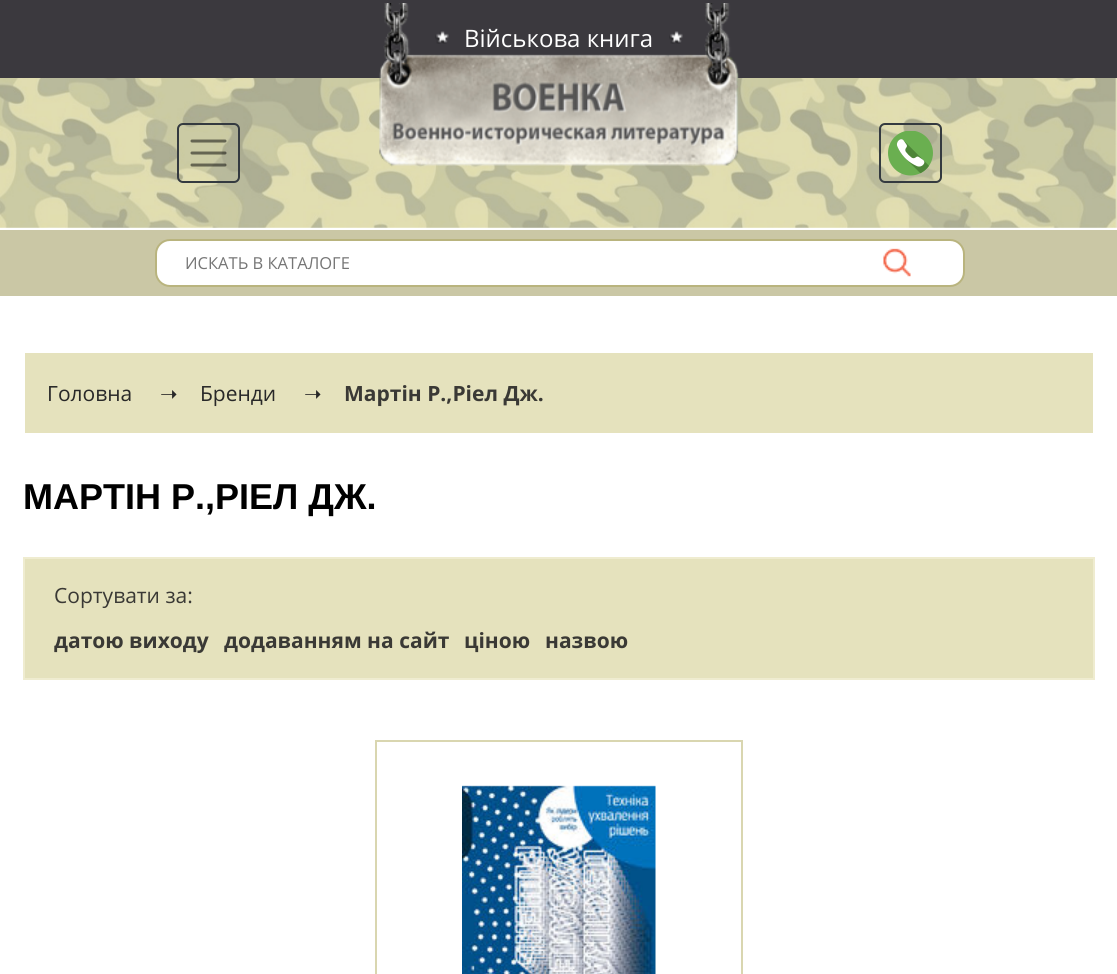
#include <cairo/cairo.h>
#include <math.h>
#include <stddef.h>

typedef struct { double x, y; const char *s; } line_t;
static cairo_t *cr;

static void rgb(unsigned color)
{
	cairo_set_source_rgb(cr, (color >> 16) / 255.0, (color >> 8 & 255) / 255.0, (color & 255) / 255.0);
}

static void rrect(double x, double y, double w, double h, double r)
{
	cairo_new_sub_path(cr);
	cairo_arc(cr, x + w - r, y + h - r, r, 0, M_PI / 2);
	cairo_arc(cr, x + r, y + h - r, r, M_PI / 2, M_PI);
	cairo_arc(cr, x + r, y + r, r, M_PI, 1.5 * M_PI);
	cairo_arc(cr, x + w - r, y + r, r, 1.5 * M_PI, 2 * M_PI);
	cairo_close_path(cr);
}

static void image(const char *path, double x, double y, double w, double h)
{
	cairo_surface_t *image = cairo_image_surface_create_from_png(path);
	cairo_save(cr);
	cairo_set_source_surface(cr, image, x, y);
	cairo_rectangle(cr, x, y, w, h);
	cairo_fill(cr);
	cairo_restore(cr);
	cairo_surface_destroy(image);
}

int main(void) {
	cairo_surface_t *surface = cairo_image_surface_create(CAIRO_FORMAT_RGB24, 1117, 974);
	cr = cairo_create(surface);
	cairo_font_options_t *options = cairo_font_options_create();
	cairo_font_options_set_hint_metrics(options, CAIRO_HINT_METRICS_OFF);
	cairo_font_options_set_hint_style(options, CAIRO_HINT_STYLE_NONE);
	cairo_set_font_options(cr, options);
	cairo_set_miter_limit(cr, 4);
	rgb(0xffffff);
	cairo_paint(cr);
	image("img/1.png", 0, 78, 1117, 150);
	rrect(178, 124, 61, 58, 5);
	rgb(0x343a40);
	cairo_stroke(cr);
	cairo_new_path(cr);
	cairo_move_to(cr, 192, 141);
	cairo_line_to(cr, 225, 141);
	cairo_move_to(cr, 192, 153);
	cairo_line_to(cr, 225, 153);
	cairo_move_to(cr, 192, 165);
	cairo_line_to(cr, 225, 165);
	cairo_set_source_rgba(cr, 0, 0, 0, 0.5);
	cairo_set_line_width(cr, 3);
	cairo_set_line_cap(cr, CAIRO_LINE_CAP_ROUND);
	cairo_stroke(cr);
	rrect(880, 124, 61, 58, 5);
	rgb(0x343a40);
	cairo_set_line_width(cr, 2);
	cairo_set_line_cap(cr, CAIRO_LINE_CAP_BUTT);
	cairo_stroke(cr);
	image("img/3.png", 888, 131, 45, 45);
	rgb(0x3b393e);
	cairo_rectangle(cr, 0, 0, 1117, 78);
	cairo_fill(cr);
	image("img/4.png", 435, 31, 14, 13);
	image("img/4.png", 669, 31, 14, 13);
	rgb(0xcac7a5);
	cairo_rectangle(cr, 0, 230, 1117, 66);
	cairo_fill(cr);
	rgb(0xffffff);
	rrect(156, 240, 808, 46, 14);
	cairo_fill_preserve(cr);
	rgb(0xb9b47e);
	cairo_stroke(cr);
	image("img/5.png", 883, 248, 28, 29);
	rgb(0xe5e2bd);
	cairo_rectangle(cr, 25, 353, 1068, 80);
	cairo_fill(cr);
	cairo_rectangle(cr, 24, 558, 1070, 121);
	cairo_fill_preserve(cr);
	rgb(0xefecd0);
	cairo_stroke(cr);
	cairo_rectangle(cr, 376, 741, 366, 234);
	rgb(0xd9d6b0);
	cairo_stroke(cr);
	image("img/6.png", 462, 785, 194, 189);
	cairo_select_font_face(cr, "Open Sans", CAIRO_FONT_SLANT_NORMAL, CAIRO_FONT_WEIGHT_NORMAL);
	cairo_set_font_size(cr, 24);
	rgb(0xffffff);
	cairo_move_to(cr, 464, 47);
	cairo_show_text(cr, "Військова книга");
	image("img/2.png", 379, 3, 361, 164);
	cairo_set_font_size(cr, 16.5);
	rgb(0x757575);
	cairo_move_to(cr, 185, 269);
	cairo_show_text(cr, "ИСКАТЬ В КАТАЛОГЕ");
	cairo_set_font_size(cr, 21);
	rgb(0x282828);
	cairo_move_to(cr, 47, 401);
	cairo_show_text(cr, "Головна");
	cairo_select_font_face(cr, "DejaVu Sans", CAIRO_FONT_SLANT_NORMAL, CAIRO_FONT_WEIGHT_NORMAL);
	cairo_move_to(cr, 160, 401);
	cairo_show_text(cr, "➝");
	cairo_select_font_face(cr, "Open Sans", CAIRO_FONT_SLANT_NORMAL, CAIRO_FONT_WEIGHT_NORMAL);
	cairo_move_to(cr, 200, 401);
	cairo_show_text(cr, "Бренди");
	cairo_select_font_face(cr, "DejaVu Sans", CAIRO_FONT_SLANT_NORMAL, CAIRO_FONT_WEIGHT_NORMAL);
	cairo_move_to(cr, 304, 401);
	cairo_show_text(cr, "➝");
	cairo_select_font_face(cr, "Open Sans", CAIRO_FONT_SLANT_NORMAL, CAIRO_FONT_WEIGHT_BOLD);
	rgb(0x3a3935);
	cairo_move_to(cr, 344, 401);
	cairo_show_text(cr, "Мартін Р.,Ріел Дж.");
	cairo_select_font_face(cr, "Liberation Sans", CAIRO_FONT_SLANT_NORMAL, CAIRO_FONT_WEIGHT_BOLD);
	cairo_set_font_size(cr, 36);
	rgb(0x000000);
	cairo_move_to(cr, 23, 509);
	cairo_show_text(cr, "МАРТІН Р.,РІЕЛ ДЖ.");
	cairo_select_font_face(cr, "Open Sans", CAIRO_FONT_SLANT_NORMAL, CAIRO_FONT_WEIGHT_NORMAL);
	cairo_set_font_size(cr, 21);
	rgb(0x3a3935);
	cairo_move_to(cr, 54, 603);
	cairo_show_text(cr, "Сортувати за:");
	cairo_select_font_face(cr, "Open Sans", CAIRO_FONT_SLANT_NORMAL, CAIRO_FONT_WEIGHT_BOLD);
	{
		static const line_t items[] = {
			{54, 648, "датою виходу"},
			{224, 648, "додаванням на сайт"},
			{464, 648, "ціною"},
			{545, 648, "назвою"},
		};
		for (size_t i = 0; i < sizeof items / sizeof *items; i++) {
			cairo_move_to(cr, items[i].x, items[i].y);
			cairo_show_text(cr, items[i].s);
		}
	}
	cairo_surface_write_to_png(surface, "page.png");
	cairo_font_options_destroy(options);
	cairo_destroy(cr);
	cairo_surface_destroy(surface);
	return 0;
}
